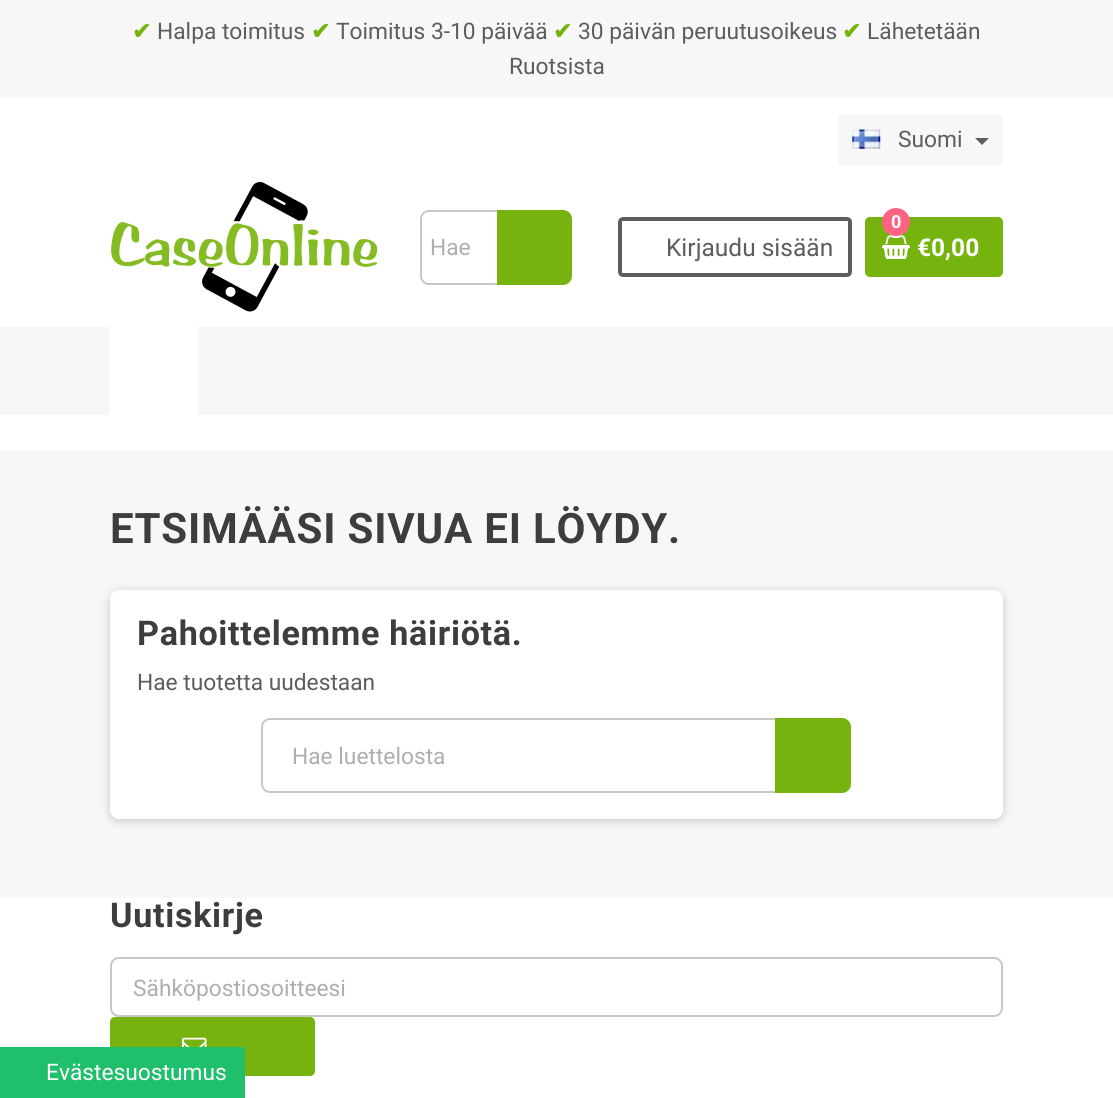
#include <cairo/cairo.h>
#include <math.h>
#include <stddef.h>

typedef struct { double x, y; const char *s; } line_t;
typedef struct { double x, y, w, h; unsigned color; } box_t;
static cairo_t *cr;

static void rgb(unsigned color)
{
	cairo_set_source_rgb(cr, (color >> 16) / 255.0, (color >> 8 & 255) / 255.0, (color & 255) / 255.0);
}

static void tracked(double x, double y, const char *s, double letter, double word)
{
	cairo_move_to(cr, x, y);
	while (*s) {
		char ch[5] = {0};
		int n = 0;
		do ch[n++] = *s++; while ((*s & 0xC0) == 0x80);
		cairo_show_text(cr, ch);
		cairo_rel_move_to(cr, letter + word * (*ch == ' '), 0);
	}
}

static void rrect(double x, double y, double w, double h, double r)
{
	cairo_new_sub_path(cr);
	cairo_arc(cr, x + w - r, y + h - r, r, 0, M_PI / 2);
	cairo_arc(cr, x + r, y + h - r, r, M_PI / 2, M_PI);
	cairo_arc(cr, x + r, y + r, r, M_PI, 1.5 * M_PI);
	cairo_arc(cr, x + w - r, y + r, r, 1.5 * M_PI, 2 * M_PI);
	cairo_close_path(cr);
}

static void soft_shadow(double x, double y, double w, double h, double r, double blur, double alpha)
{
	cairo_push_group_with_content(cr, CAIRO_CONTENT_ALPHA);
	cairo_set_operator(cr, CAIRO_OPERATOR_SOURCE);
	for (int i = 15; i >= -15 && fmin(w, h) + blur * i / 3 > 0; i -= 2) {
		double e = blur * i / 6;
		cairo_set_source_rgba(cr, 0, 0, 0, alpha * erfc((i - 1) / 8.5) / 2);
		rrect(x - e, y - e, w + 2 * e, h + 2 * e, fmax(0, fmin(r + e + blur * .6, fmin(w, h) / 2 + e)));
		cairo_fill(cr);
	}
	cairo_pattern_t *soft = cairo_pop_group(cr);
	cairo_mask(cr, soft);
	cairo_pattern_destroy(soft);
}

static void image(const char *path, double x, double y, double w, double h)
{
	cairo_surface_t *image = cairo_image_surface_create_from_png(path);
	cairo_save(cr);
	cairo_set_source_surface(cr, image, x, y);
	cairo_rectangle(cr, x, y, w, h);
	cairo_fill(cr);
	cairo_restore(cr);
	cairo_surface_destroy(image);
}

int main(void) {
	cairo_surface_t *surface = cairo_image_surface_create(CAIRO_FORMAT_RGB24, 1113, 1098);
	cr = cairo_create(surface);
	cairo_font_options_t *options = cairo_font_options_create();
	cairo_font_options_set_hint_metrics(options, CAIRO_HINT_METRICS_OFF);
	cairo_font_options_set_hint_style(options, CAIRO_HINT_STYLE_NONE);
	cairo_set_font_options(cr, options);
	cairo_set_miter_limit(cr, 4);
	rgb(0xffffff);
	cairo_paint(cr);
	rgb(0xf7f7f7);
	cairo_rectangle(cr, 0, 0, 1113, 98);
	cairo_fill(cr);
	rrect(838, 114, 165, 52, 5);
	cairo_fill(cr);
	image("img/1.png", 852, 129, 29, 20);
	rgb(0x5d5d5d);
	cairo_new_path(cr);
	cairo_move_to(cr, 975, 138);
	cairo_line_to(cr, 989, 138);
	cairo_line_to(cr, 982, 145);
	cairo_close_path(cr);
	cairo_fill(cr);
	image("img/2.png", 111, 182, 267, 130);
	rrect(421, 211, 149, 73, 8);
	rgb(0xc7c7c7);
	cairo_stroke(cr);
	rgb(0x77b30e);
	cairo_new_path(cr);
	cairo_move_to(cr, 497, 210);
	cairo_line_to(cr, 563, 210);
	cairo_curve_to(cr, 568, 210, 572, 214, 572, 219);
	cairo_line_to(cr, 572, 276);
	cairo_curve_to(cr, 572, 281, 568, 285, 563, 285);
	cairo_line_to(cr, 497, 285);
	cairo_close_path(cr);
	cairo_fill(cr);
	rrect(620, 219, 230, 56, 3);
	rgb(0x5d5d5d);
	cairo_set_line_width(cr, 4);
	cairo_stroke(cr);
	rgb(0x77b30e);
	rrect(865, 217, 138, 60, 5);
	cairo_fill(cr);
	image("img/3.png", 882, 235, 28, 24);
	rgb(0xfd6282);
	cairo_arc(cr, 896, 222, 14, 0, 2 * M_PI);
	cairo_fill(cr);
	{
		static const box_t items[] = {
			{0, 327, 1113, 88, 0xf7f7f7},
			{110, 327, 88, 88, 0xffffff},
			{0, 450, 1113, 448, 0xf7f7f7},
		};
		for (size_t i = 0; i < sizeof items / sizeof *items; i++) {
			rgb(items[i].color);
			cairo_rectangle(cr, items[i].x, items[i].y, items[i].w, items[i].h);
			cairo_fill(cr);
		}
	}
	rgb(0x000000);
	soft_shadow(110, 592, 893, 229, 9, 4.5, 0.2);
	rgb(0xffffff);
	rrect(110, 590, 893, 229, 9);
	cairo_fill(cr);
	rrect(262, 719, 586, 73, 8);
	rgb(0xc7c7c7);
	cairo_set_line_width(cr, 2);
	cairo_stroke(cr);
	rgb(0x77b30e);
	cairo_new_path(cr);
	cairo_move_to(cr, 775, 718);
	cairo_line_to(cr, 842, 718);
	cairo_curve_to(cr, 847, 718, 851, 722, 851, 727);
	cairo_line_to(cr, 851, 784);
	cairo_curve_to(cr, 851, 789, 847, 793, 842, 793);
	cairo_line_to(cr, 775, 793);
	cairo_close_path(cr);
	cairo_fill(cr);
	rrect(111, 958, 891, 58, 8);
	rgb(0xc7c7c7);
	cairo_stroke(cr);
	rgb(0x77b30e);
	rrect(110, 1017, 205, 59, 5);
	cairo_fill(cr);
	image("img/4.png", 182, 1037, 25, 10);
	rgb(0x20bf6b);
	cairo_rectangle(cr, 0, 1047, 245, 51);
	cairo_fill(cr);
	cairo_select_font_face(cr, "DejaVu Sans", CAIRO_FONT_SLANT_NORMAL, CAIRO_FONT_WEIGHT_BOLD);
	cairo_set_font_size(cr, 22.75);
	rgb(0x77b30e);
	cairo_move_to(cr, 132, 39);
	cairo_show_text(cr, "✔");
	cairo_select_font_face(cr, "Roboto", CAIRO_FONT_SLANT_NORMAL, CAIRO_FONT_WEIGHT_NORMAL);
	rgb(0x5d5d5d);
	cairo_move_to(cr, 157, 39);
	cairo_show_text(cr, "Halpa toimitus");
	cairo_select_font_face(cr, "DejaVu Sans", CAIRO_FONT_SLANT_NORMAL, CAIRO_FONT_WEIGHT_BOLD);
	rgb(0x77b30e);
	cairo_move_to(cr, 311, 39);
	cairo_show_text(cr, "✔");
	cairo_select_font_face(cr, "Roboto", CAIRO_FONT_SLANT_NORMAL, CAIRO_FONT_WEIGHT_NORMAL);
	rgb(0x5d5d5d);
	cairo_move_to(cr, 336, 39);
	cairo_show_text(cr, "Toimitus 3-10 päivää");
	cairo_select_font_face(cr, "DejaVu Sans", CAIRO_FONT_SLANT_NORMAL, CAIRO_FONT_WEIGHT_BOLD);
	rgb(0x77b30e);
	cairo_move_to(cr, 553, 39);
	cairo_show_text(cr, "✔");
	cairo_select_font_face(cr, "Roboto", CAIRO_FONT_SLANT_NORMAL, CAIRO_FONT_WEIGHT_NORMAL);
	rgb(0x5d5d5d);
	cairo_move_to(cr, 578, 39);
	cairo_show_text(cr, "30 päivän peruutusoikeus");
	cairo_select_font_face(cr, "DejaVu Sans", CAIRO_FONT_SLANT_NORMAL, CAIRO_FONT_WEIGHT_BOLD);
	rgb(0x77b30e);
	cairo_move_to(cr, 842, 39);
	cairo_show_text(cr, "✔");
	cairo_select_font_face(cr, "Roboto", CAIRO_FONT_SLANT_NORMAL, CAIRO_FONT_WEIGHT_NORMAL);
	rgb(0x5d5d5d);
	{
		static const line_t items[] = {
			{867, 39, "Lähetetään"},
			{509, 74, "Ruotsista"},
			{898, 147, "Suomi"},
		};
		for (size_t i = 0; i < sizeof items / sizeof *items; i++) {
			cairo_move_to(cr, items[i].x, items[i].y);
			cairo_show_text(cr, items[i].s);
		}
	}
	rgb(0xaeaeae);
	cairo_move_to(cr, 430, 255);
	cairo_show_text(cr, "Hae");
	cairo_set_font_size(cr, 24.5);
	rgb(0x5d5d5d);
	cairo_move_to(cr, 666, 256);
	cairo_show_text(cr, "Kirjaudu sisään");
	cairo_select_font_face(cr, "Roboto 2", CAIRO_FONT_SLANT_NORMAL, CAIRO_FONT_WEIGHT_BOLD);
	cairo_set_font_size(cr, 18);
	rgb(0xffffff);
	cairo_move_to(cr, 891, 228);
	cairo_show_text(cr, "0");
	cairo_set_font_size(cr, 24.5);
	cairo_move_to(cr, 917, 256);
	cairo_show_text(cr, "€0,00");
	cairo_select_font_face(cr, "Roboto", CAIRO_FONT_SLANT_NORMAL, CAIRO_FONT_WEIGHT_BOLD);
	cairo_set_font_size(cr, 42);
	rgb(0x3d3d3d);
	tracked(110, 543, "ETSIMÄÄSI SIVUA EI LÖYDY.", 0.8, 0);
	cairo_set_font_size(cr, 34.1);
	tracked(137, 645, "Pahoittelemme häiriötä.", 0.7, 0);
	cairo_select_font_face(cr, "Roboto", CAIRO_FONT_SLANT_NORMAL, CAIRO_FONT_WEIGHT_NORMAL);
	cairo_set_font_size(cr, 22.75);
	rgb(0x5d5d5d);
	cairo_move_to(cr, 137, 690);
	cairo_show_text(cr, "Hae tuotetta uudestaan");
	rgb(0xaeaeae);
	cairo_move_to(cr, 292, 764);
	cairo_show_text(cr, "Hae luettelosta");
	cairo_select_font_face(cr, "Roboto", CAIRO_FONT_SLANT_NORMAL, CAIRO_FONT_WEIGHT_BOLD);
	cairo_set_font_size(cr, 34.1);
	rgb(0x3d3d3d);
	tracked(110, 927, "Uutiskirje", 0.7, 0);
	cairo_select_font_face(cr, "Roboto", CAIRO_FONT_SLANT_NORMAL, CAIRO_FONT_WEIGHT_NORMAL);
	cairo_set_font_size(cr, 22.75);
	rgb(0xaeaeae);
	cairo_move_to(cr, 133, 996);
	cairo_show_text(cr, "Sähköpostiosoitteesi");
	rgb(0xffffff);
	cairo_move_to(cr, 46, 1080);
	cairo_show_text(cr, "Evästesuostumus");
	cairo_surface_write_to_png(surface, "page.png");
	cairo_font_options_destroy(options);
	cairo_destroy(cr);
	cairo_surface_destroy(surface);
	return 0;
}
